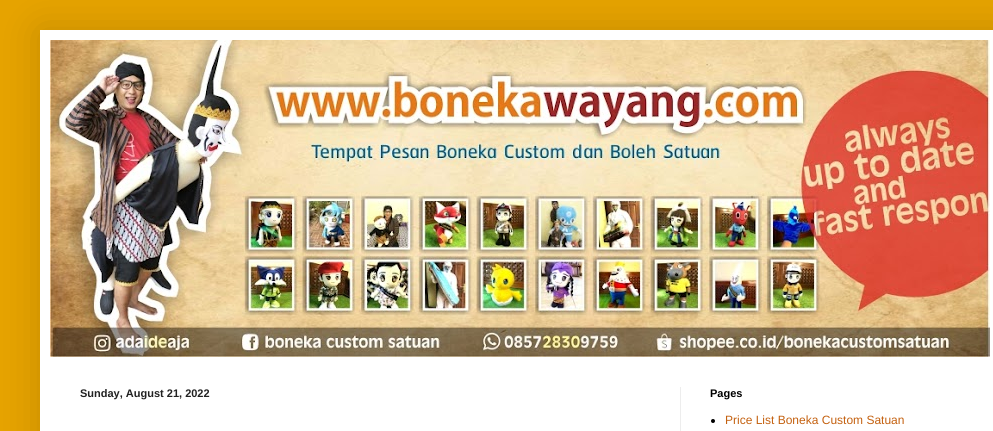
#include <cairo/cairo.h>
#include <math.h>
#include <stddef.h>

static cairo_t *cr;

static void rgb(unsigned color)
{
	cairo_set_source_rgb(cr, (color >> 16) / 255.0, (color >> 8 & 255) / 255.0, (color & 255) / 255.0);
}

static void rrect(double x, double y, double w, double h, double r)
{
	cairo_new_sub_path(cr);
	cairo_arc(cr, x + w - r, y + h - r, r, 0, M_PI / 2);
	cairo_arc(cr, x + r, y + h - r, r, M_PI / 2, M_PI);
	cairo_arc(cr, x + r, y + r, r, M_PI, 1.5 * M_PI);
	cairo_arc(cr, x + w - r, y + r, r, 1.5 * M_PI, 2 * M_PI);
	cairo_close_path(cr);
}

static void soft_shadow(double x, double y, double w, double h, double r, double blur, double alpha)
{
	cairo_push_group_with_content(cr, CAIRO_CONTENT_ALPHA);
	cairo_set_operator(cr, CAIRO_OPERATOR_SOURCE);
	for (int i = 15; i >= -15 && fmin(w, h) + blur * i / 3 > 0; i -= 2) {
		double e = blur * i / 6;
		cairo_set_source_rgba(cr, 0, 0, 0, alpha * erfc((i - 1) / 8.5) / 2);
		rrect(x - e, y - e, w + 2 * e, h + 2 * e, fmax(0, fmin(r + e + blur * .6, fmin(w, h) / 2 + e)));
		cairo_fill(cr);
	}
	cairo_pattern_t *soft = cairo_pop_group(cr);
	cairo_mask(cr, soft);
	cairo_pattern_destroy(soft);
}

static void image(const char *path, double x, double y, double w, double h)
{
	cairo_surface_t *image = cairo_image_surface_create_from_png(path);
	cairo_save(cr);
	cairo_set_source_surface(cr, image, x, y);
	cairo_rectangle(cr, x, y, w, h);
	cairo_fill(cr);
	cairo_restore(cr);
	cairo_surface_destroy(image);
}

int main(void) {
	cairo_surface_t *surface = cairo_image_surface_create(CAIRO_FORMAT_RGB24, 993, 431);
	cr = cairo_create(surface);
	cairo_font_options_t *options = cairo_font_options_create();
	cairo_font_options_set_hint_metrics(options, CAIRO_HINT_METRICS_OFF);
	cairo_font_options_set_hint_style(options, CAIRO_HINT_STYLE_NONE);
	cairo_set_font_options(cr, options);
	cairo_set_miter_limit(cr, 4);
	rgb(0xe6a300);
	cairo_paint(cr);
	rgb(0x000000);
	soft_shadow(40, 30, 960, 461, 0, 20, 0.15);
	rgb(0xffffff);
	cairo_rectangle(cr, 40, 30, 953, 401);
	cairo_fill(cr);
	image("img/1.png", 50, 40, 940, 317);
	rgb(0xededed);
	cairo_rectangle(cr, 680, 387, 1, 44);
	cairo_fill(cr);
	rgb(0x000000);
	cairo_arc(cr, 713, 421, 2, 0, 2 * M_PI);
	cairo_fill(cr);
	cairo_select_font_face(cr, "Liberation Sans", CAIRO_FONT_SLANT_NORMAL, CAIRO_FONT_WEIGHT_BOLD);
	cairo_set_font_size(cr, 11);
	rgb(0x222222);
	cairo_move_to(cr, 80, 397);
	cairo_show_text(cr, "Sunday, August 21, 2022");
	rgb(0x000000);
	cairo_move_to(cr, 710, 397);
	cairo_show_text(cr, "Pages");
	cairo_select_font_face(cr, "Liberation Sans", CAIRO_FONT_SLANT_NORMAL, CAIRO_FONT_WEIGHT_NORMAL);
	cairo_set_font_size(cr, 12);
	rgb(0xc46110);
	cairo_move_to(cr, 725, 424);
	cairo_show_text(cr, "Price List Boneka Custom Satuan");
	cairo_surface_write_to_png(surface, "page.png");
	cairo_font_options_destroy(options);
	cairo_destroy(cr);
	cairo_surface_destroy(surface);
	return 0;
}
